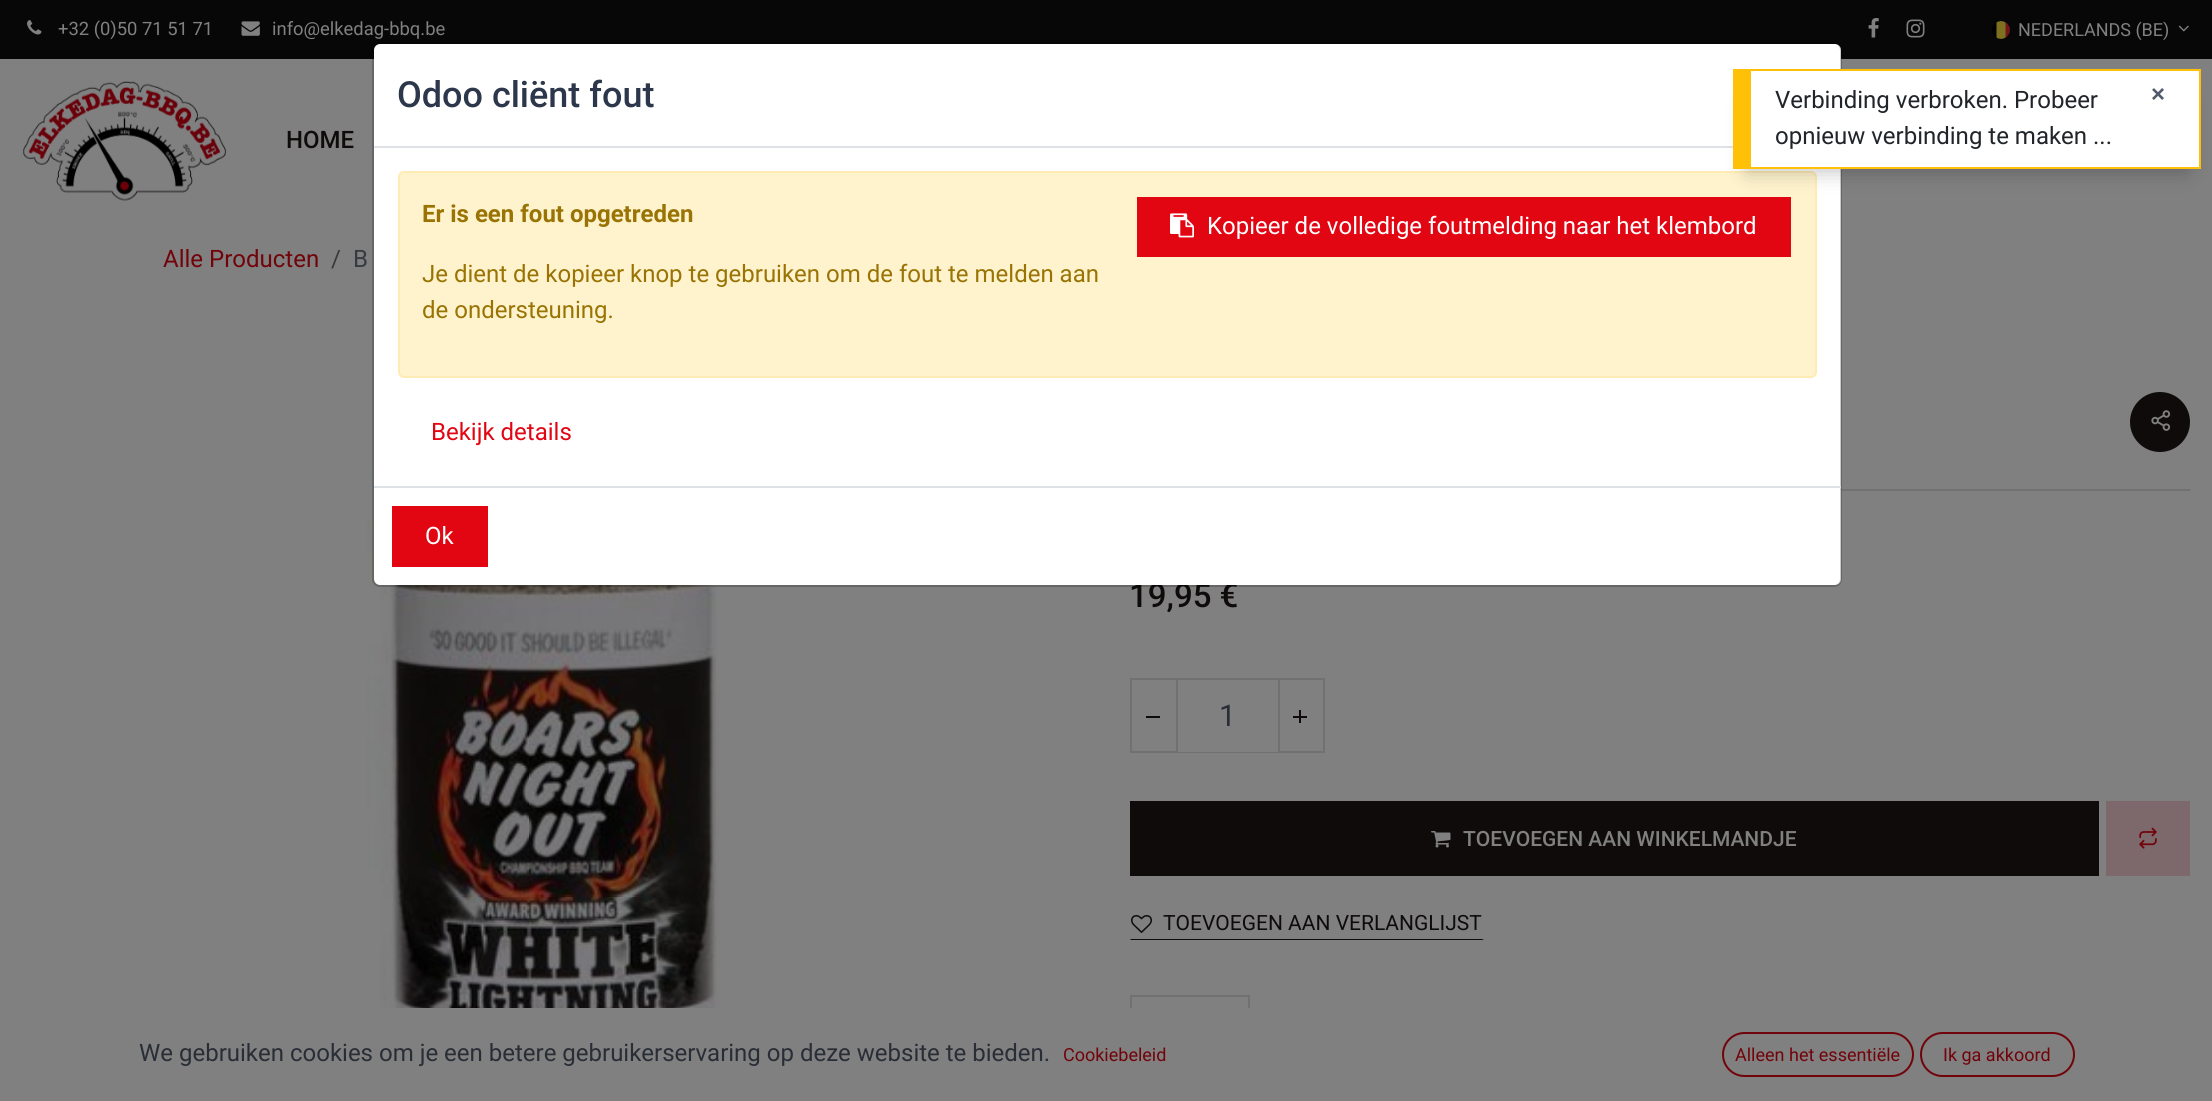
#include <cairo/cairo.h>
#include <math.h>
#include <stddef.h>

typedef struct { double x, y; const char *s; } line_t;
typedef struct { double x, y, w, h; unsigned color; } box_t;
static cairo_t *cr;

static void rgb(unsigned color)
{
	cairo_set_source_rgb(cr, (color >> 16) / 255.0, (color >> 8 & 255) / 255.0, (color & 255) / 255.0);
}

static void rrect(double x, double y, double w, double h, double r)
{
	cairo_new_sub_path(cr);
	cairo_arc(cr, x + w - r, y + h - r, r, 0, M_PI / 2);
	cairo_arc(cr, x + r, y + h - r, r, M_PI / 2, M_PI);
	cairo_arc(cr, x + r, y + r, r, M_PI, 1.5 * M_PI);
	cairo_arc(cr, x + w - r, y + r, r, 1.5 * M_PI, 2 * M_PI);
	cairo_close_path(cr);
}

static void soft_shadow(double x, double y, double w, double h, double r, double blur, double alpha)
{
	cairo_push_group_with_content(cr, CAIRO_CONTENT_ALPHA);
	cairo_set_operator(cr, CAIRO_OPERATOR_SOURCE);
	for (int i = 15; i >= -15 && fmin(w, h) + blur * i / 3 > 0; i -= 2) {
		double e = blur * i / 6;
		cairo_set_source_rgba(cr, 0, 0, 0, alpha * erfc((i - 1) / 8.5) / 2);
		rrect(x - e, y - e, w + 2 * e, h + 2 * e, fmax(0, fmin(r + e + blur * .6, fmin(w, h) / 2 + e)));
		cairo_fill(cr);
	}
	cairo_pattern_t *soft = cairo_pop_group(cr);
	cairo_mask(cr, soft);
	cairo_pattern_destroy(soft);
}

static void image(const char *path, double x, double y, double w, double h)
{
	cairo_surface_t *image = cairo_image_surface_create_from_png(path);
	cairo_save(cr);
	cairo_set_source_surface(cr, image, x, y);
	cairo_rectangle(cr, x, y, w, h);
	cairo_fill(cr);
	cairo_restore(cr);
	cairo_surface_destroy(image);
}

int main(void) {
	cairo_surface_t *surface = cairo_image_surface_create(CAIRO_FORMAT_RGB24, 2212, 1101);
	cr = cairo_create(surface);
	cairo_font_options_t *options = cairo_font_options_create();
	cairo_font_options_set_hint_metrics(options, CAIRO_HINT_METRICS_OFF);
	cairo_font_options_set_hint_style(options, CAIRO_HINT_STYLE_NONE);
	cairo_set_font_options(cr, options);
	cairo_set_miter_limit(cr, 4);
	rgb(0x808080);
	cairo_paint(cr);
	rgb(0x070707);
	cairo_rectangle(cr, 0, 0, 2212, 59);
	cairo_fill(cr);
	image("img/1.png", 27, 20, 15, 15);
	image("img/2.png", 241, 21, 19, 15);
	image("img/3.png", 1868, 18, 11, 20);
	image("img/4.png", 1906, 19, 19, 19);
	image("img/5.png", 1992, 21, 18, 18);
	image("img/6.png", 2178, 25, 11, 7);
	image("img/7.png", 23, 81, 204, 120);
	image("img/8.png", 367, 392, 353, 616);
	rgb(0x0f0b0b);
	cairo_arc(cr, 2160, 422, 30, 0, 2 * M_PI);
	cairo_fill(cr);
	image("img/9.png", 2151, 410, 20, 21);
	rgb(0x6f7173);
	cairo_rectangle(cr, 1841, 489, 349, 2);
	cairo_fill(cr);
	cairo_rectangle(cr, 1131, 679, 193, 73);
	cairo_stroke(cr);
	{
		static const box_t items[] = {
			{1146, 716, 14, 2, 0x0f0b0b},
			{1178, 751, 100, 1, 0x808080},
			{1278, 680, 2, 72, 0x6f7173},
			{1176, 680, 2, 72, 0x6f7173},
			{1293, 716, 14, 2, 0x0f0b0b},
			{1299, 710, 2, 13, 0x0f0b0b},
			{1130, 801, 969, 75, 0x0f0b0b},
		};
		for (size_t i = 0; i < sizeof items / sizeof *items; i++) {
			rgb(items[i].color);
			cairo_rectangle(cr, items[i].x, items[i].y, items[i].w, items[i].h);
			cairo_fill(cr);
		}
	}
	image("img/10.png", 1431, 831, 20, 17);
	rgb(0x7d696b);
	cairo_rectangle(cr, 2106, 801, 84, 75);
	cairo_fill(cr);
	image("img/11.png", 2139, 827, 18, 22);
	rgb(0x0f0b0b);
	cairo_new_path(cr);
	cairo_move_to(cr, 1484, 940);
	cairo_line_to(cr, 1130, 940);
	cairo_line_to(cr, 1131, 939);
	cairo_line_to(cr, 1482, 939);
	cairo_close_path(cr);
	cairo_fill(cr);
	image("img/12.png", 1131, 915, 21, 18);
	cairo_rectangle(cr, 1131, 996, 118, 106);
	rgb(0x6f7173);
	cairo_stroke(cr);
	rgb(0x808080);
	cairo_rectangle(cr, 1130, 1008, 120, 93);
	cairo_fill(cr);
	rrect(1723, 1033, 190, 43, 21.5);
	rgb(0x71030a);
	cairo_stroke(cr);
	rrect(1921, 1033, 153, 43, 21.5);
	cairo_stroke(cr);
	cairo_select_font_face(cr, "Roboto", CAIRO_FONT_SLANT_NORMAL, CAIRO_FONT_WEIGHT_NORMAL);
	cairo_set_font_size(cr, 18.4);
	rgb(0x808080);
	cairo_move_to(cr, 58, 35);
	cairo_show_text(cr, "+32 (0)50 71 51 71");
	cairo_move_to(cr, 272, 35);
	cairo_show_text(cr, "info@elkedag-bbq.be");
	cairo_set_font_size(cr, 18);
	cairo_move_to(cr, 2018, 36);
	cairo_show_text(cr, "NEDERLANDS (BE)");
	cairo_select_font_face(cr, "Roboto Medium", CAIRO_FONT_SLANT_NORMAL, CAIRO_FONT_WEIGHT_NORMAL);
	cairo_set_font_size(cr, 24);
	rgb(0x0f0b0b);
	cairo_move_to(cr, 286, 148);
	cairo_show_text(cr, "HOME");
	cairo_select_font_face(cr, "Roboto", CAIRO_FONT_SLANT_NORMAL, CAIRO_FONT_WEIGHT_NORMAL);
	rgb(0x71030a);
	cairo_move_to(cr, 163, 267);
	cairo_show_text(cr, "Alle Producten");
	rgb(0x363b3f);
	cairo_move_to(cr, 331, 267);
	cairo_show_text(cr, "/");
	cairo_move_to(cr, 353, 267);
	cairo_show_text(cr, "B");
	cairo_select_font_face(cr, "Roboto Medium", CAIRO_FONT_SLANT_NORMAL, CAIRO_FONT_WEIGHT_NORMAL);
	cairo_set_font_size(cr, 33);
	rgb(0x0f0b0b);
	cairo_move_to(cr, 1129, 607);
	cairo_show_text(cr, "19,95 €");
	cairo_select_font_face(cr, "Roboto", CAIRO_FONT_SLANT_NORMAL, CAIRO_FONT_WEIGHT_NORMAL);
	cairo_set_font_size(cr, 30);
	rgb(0x292d36);
	cairo_move_to(cr, 1219, 726);
	cairo_show_text(cr, "1");
	cairo_select_font_face(cr, "Roboto Medium", CAIRO_FONT_SLANT_NORMAL, CAIRO_FONT_WEIGHT_NORMAL);
	cairo_set_font_size(cr, 21);
	rgb(0x808080);
	cairo_move_to(cr, 1463, 846);
	cairo_show_text(cr, "TOEVOEGEN AAN WINKELMANDJE");
	cairo_select_font_face(cr, "Roboto", CAIRO_FONT_SLANT_NORMAL, CAIRO_FONT_WEIGHT_NORMAL);
	rgb(0x0f0b0b);
	cairo_move_to(cr, 1163, 930);
	cairo_show_text(cr, "TOEVOEGEN AAN VERLANGLIJST");
	cairo_set_font_size(cr, 24);
	rgb(0x292d36);
	cairo_move_to(cr, 139, 1061);
	cairo_show_text(cr, "We gebruiken cookies om je een betere gebruikerservaring op deze website te bieden.");
	cairo_set_font_size(cr, 18);
	rgb(0x71030a);
	{
		static const line_t items[] = {
			{1063, 1061, "Cookiebeleid"},
			{1735, 1061, "Alleen het essentiële"},
			{1943, 1061, "Ik ga akkoord"},
		};
		for (size_t i = 0; i < sizeof items / sizeof *items; i++) {
			cairo_move_to(cr, items[i].x, items[i].y);
			cairo_show_text(cr, items[i].s);
		}
	}
	rgb(0xffffff);
	rrect(374, 44, 1467, 541, 6);
	cairo_fill(cr);
	rrect(373, 43, 1468, 543, 7);
	cairo_set_source_rgba(cr, 0, 0, 0, 0.2);
	cairo_stroke(cr);
	rgb(0xdee2e6);
	cairo_rectangle(cr, 374, 146, 1359, 2);
	cairo_fill(cr);
	cairo_select_font_face(cr, "Roboto Medium", CAIRO_FONT_SLANT_NORMAL, CAIRO_FONT_WEIGHT_NORMAL);
	cairo_set_font_size(cr, 36);
	rgb(0x2d374b);
	cairo_move_to(cr, 397, 107);
	cairo_show_text(cr, "Odoo cliënt fout");
	rgb(0xfff3cd);
	rrect(399, 172, 1417, 205, 5);
	cairo_fill_preserve(cr);
	rgb(0xffecb5);
	cairo_stroke(cr);
	cairo_select_font_face(cr, "Roboto", CAIRO_FONT_SLANT_NORMAL, CAIRO_FONT_WEIGHT_BOLD);
	cairo_set_font_size(cr, 24);
	rgb(0x997404);
	cairo_move_to(cr, 422, 222);
	cairo_show_text(cr, "Er is een fout opgetreden");
	rgb(0xe20613);
	cairo_rectangle(cr, 1137, 197, 654, 60);
	cairo_fill(cr);
	image("img/13.png", 1170, 213, 24, 25);
	cairo_select_font_face(cr, "Roboto", CAIRO_FONT_SLANT_NORMAL, CAIRO_FONT_WEIGHT_NORMAL);
	rgb(0xffffff);
	cairo_move_to(cr, 1207, 234);
	cairo_show_text(cr, "Kopieer de volledige foutmelding naar het klembord");
	rgb(0x997404);
	cairo_move_to(cr, 422, 282);
	cairo_show_text(cr, "Je dient de kopieer knop te gebruiken om de fout te melden aan");
	cairo_move_to(cr, 422, 318);
	cairo_show_text(cr, "de ondersteuning.");
	rgb(0xe20613);
	cairo_move_to(cr, 431, 440);
	cairo_show_text(cr, "Bekijk details");
	rgb(0xdee2e6);
	cairo_rectangle(cr, 374, 486, 1467, 2);
	cairo_fill(cr);
	rgb(0xe20613);
	cairo_rectangle(cr, 392, 506, 96, 61);
	cairo_fill(cr);
	rgb(0xffffff);
	cairo_move_to(cr, 425, 544);
	cairo_show_text(cr, "Ok");
	rgb(0x000000);
	soft_shadow(1748, 102, 438, 69, 0, 10.5, 0.25);
	{
		static const box_t items[] = {
			{1751, 71, 448, 96, 0xffffff},
			{1751, 69, 450, 2, 0xffc107},
			{2199, 69, 2, 99, 0xffc107},
			{1733, 167, 468, 2, 0xffc107},
			{1733, 69, 18, 98, 0xffc107},
		};
		for (size_t i = 0; i < sizeof items / sizeof *items; i++) {
			rgb(items[i].color);
			cairo_rectangle(cr, items[i].x, items[i].y, items[i].w, items[i].h);
			cairo_fill(cr);
		}
	}
	rgb(0x212529);
	cairo_move_to(cr, 1775, 108);
	cairo_show_text(cr, "Verbinding verbroken. Probeer");
	cairo_move_to(cr, 1775, 144);
	cairo_show_text(cr, "opnieuw verbinding te maken ...");
	cairo_select_font_face(cr, "Liberation Sans", CAIRO_FONT_SLANT_NORMAL, CAIRO_FONT_WEIGHT_BOLD);
	rgb(0x51596c);
	cairo_move_to(cr, 2151, 102);
	cairo_show_text(cr, "×");
	cairo_surface_write_to_png(surface, "page.png");
	cairo_font_options_destroy(options);
	cairo_destroy(cr);
	cairo_surface_destroy(surface);
	return 0;
}
